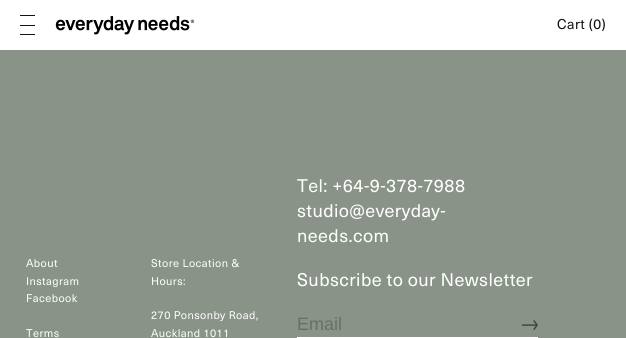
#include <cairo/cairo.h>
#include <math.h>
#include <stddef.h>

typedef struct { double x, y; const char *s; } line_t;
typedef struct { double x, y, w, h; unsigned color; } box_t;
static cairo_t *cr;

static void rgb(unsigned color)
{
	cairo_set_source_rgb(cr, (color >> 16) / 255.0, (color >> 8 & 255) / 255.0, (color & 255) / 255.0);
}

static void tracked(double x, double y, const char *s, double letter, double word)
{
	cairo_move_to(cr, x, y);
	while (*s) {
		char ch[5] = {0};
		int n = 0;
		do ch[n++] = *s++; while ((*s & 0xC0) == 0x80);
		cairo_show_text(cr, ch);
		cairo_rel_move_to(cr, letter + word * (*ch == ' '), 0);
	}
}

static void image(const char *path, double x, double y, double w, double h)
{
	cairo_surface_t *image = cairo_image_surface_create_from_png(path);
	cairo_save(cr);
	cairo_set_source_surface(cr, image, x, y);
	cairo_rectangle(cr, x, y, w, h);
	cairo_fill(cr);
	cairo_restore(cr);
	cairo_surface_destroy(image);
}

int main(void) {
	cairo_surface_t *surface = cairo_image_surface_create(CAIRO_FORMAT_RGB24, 626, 338);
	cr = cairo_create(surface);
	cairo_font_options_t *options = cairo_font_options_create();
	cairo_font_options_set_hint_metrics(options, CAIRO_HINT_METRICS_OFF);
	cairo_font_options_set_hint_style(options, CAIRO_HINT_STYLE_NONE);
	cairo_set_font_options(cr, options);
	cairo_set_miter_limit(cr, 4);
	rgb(0x899387);
	cairo_paint(cr);
	{
		static const box_t items[] = {
			{0, 0, 626, 50, 0xffffff},
			{20, 15, 15, 1, 0x141414},
			{20, 25, 15, 1, 0x141414},
			{20, 34, 15, 1, 0x141414},
		};
		for (size_t i = 0; i < sizeof items / sizeof *items; i++) {
			rgb(items[i].color);
			cairo_rectangle(cr, items[i].x, items[i].y, items[i].w, items[i].h);
			cairo_fill(cr);
		}
	}
	image("img/1.png", 55, 16, 140, 19);
	rgb(0xffffff);
	cairo_rectangle(cr, 297, 337, 241, 1);
	cairo_fill(cr);
	image("img/2.png", 522, 320, 16, 10);
	cairo_select_font_face(cr, "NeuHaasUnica", CAIRO_FONT_SLANT_NORMAL, CAIRO_FONT_WEIGHT_NORMAL);
	cairo_set_font_size(cr, 14);
	rgb(0x141414);
	tracked(557, 29, "Cart (0)", 0.4, 0);
	cairo_set_font_size(cr, 11);
	rgb(0xffffff);
	{
		static const line_t items[] = {
			{26, 267, "About"},
			{26, 285, "Instagram"},
			{26, 302, "Facebook"},
			{26, 337, "Terms"},
			{151, 267, "Store Location &"},
			{151, 285, "Hours:"},
			{151, 319, "270 Ponsonby Road,"},
			{151, 337, "Auckland 1011"},
		};
		for (size_t i = 0; i < sizeof items / sizeof *items; i++) {
			tracked(items[i].x, items[i].y, items[i].s, 0.4, 0);
		}
	}
	cairo_set_font_size(cr, 18);
	{
		static const line_t items[] = {
			{297, 192, "Tel: +64-9-378-7988"},
			{297, 217, "studio@everyday-"},
			{297, 242, "needs.com"},
			{297, 286, "Subscribe to our Newsletter"},
		};
		for (size_t i = 0; i < sizeof items / sizeof *items; i++) {
			tracked(items[i].x, items[i].y, items[i].s, 0.4, 0);
		}
	}
	cairo_select_font_face(cr, "Liberation Sans", CAIRO_FONT_SLANT_NORMAL, CAIRO_FONT_WEIGHT_NORMAL);
	rgb(0x6d6d6d);
	cairo_move_to(cr, 297, 330);
	cairo_show_text(cr, "Email");
	cairo_surface_write_to_png(surface, "page.png");
	cairo_font_options_destroy(options);
	cairo_destroy(cr);
	cairo_surface_destroy(surface);
	return 0;
}
